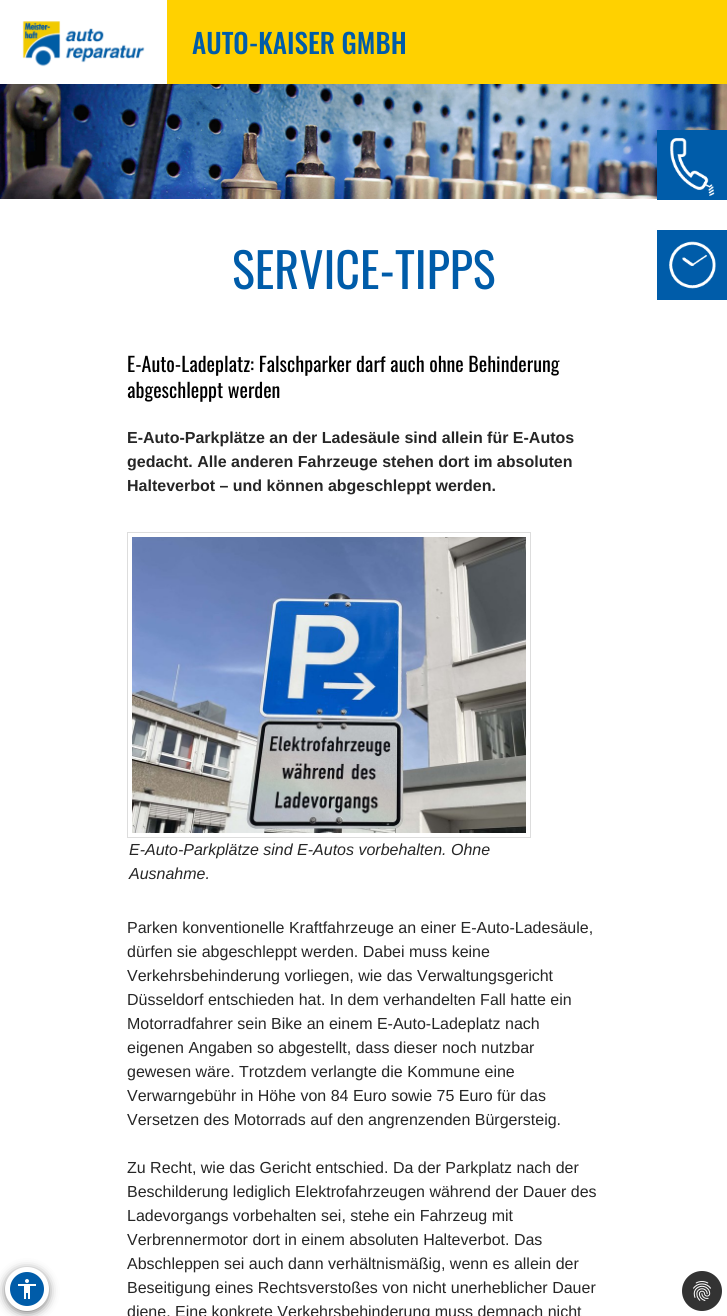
#include <cairo/cairo.h>
#include <math.h>
#include <stddef.h>

typedef struct { double x, y; const char *s; } line_t;
static cairo_t *cr;

static void rgb(unsigned color)
{
	cairo_set_source_rgb(cr, (color >> 16) / 255.0, (color >> 8 & 255) / 255.0, (color & 255) / 255.0);
}

static void rrect(double x, double y, double w, double h, double r)
{
	cairo_new_sub_path(cr);
	cairo_arc(cr, x + w - r, y + h - r, r, 0, M_PI / 2);
	cairo_arc(cr, x + r, y + h - r, r, M_PI / 2, M_PI);
	cairo_arc(cr, x + r, y + r, r, M_PI, 1.5 * M_PI);
	cairo_arc(cr, x + w - r, y + r, r, 1.5 * M_PI, 2 * M_PI);
	cairo_close_path(cr);
}

static void soft_shadow(double x, double y, double w, double h, double r, double blur, double alpha)
{
	cairo_push_group_with_content(cr, CAIRO_CONTENT_ALPHA);
	cairo_set_operator(cr, CAIRO_OPERATOR_SOURCE);
	for (int i = 15; i >= -15 && fmin(w, h) + blur * i / 3 > 0; i -= 2) {
		double e = blur * i / 6;
		cairo_set_source_rgba(cr, 0, 0, 0, alpha * erfc((i - 1) / 8.5) / 2);
		rrect(x - e, y - e, w + 2 * e, h + 2 * e, fmax(0, fmin(r + e + blur * .6, fmin(w, h) / 2 + e)));
		cairo_fill(cr);
	}
	cairo_pattern_t *soft = cairo_pop_group(cr);
	cairo_mask(cr, soft);
	cairo_pattern_destroy(soft);
}

static void image(const char *path, double x, double y, double w, double h)
{
	cairo_surface_t *image = cairo_image_surface_create_from_png(path);
	cairo_save(cr);
	cairo_set_source_surface(cr, image, x, y);
	cairo_rectangle(cr, x, y, w, h);
	cairo_fill(cr);
	cairo_restore(cr);
	cairo_surface_destroy(image);
}

int main(void) {
	cairo_surface_t *surface = cairo_image_surface_create(CAIRO_FORMAT_RGB24, 727, 1316);
	cr = cairo_create(surface);
	cairo_font_options_t *options = cairo_font_options_create();
	cairo_font_options_set_hint_metrics(options, CAIRO_HINT_METRICS_OFF);
	cairo_font_options_set_hint_style(options, CAIRO_HINT_STYLE_NONE);
	cairo_set_font_options(cr, options);
	cairo_set_miter_limit(cr, 4);
	rgb(0xffffff);
	cairo_paint(cr);
	rgb(0xffd100);
	cairo_rectangle(cr, 167, 0, 560, 84);
	cairo_fill(cr);
	image("img/1.png", 22, 21, 123, 46);
	image("img/2.png", 0, 84, 727, 115);
	rgb(0x005ca9);
	cairo_rectangle(cr, 657, 130, 70, 70);
	cairo_fill(cr);
	image("img/3.png", 670, 138, 45, 58);
	cairo_rectangle(cr, 657, 230, 70, 70);
	cairo_fill(cr);
	image("img/4.png", 669, 241, 47, 48);
	rgb(0x000000);
	soft_shadow(9, 1273, 36, 36, 18, 6, 1);
	rgb(0x005ca9);
	cairo_arc(cr, 27, 1289, 19.5, 0, 2 * M_PI);
	cairo_fill_preserve(cr);
	rgb(0xffffff);
	cairo_set_line_width(cr, 5);
	cairo_stroke(cr);
	image("img/5.png", 18, 1279, 18, 20);
	cairo_rectangle(cr, 127.5, 532.5, 403, 305);
	rgb(0xdddddd);
	cairo_set_line_width(cr, 1);
	cairo_stroke(cr);
	image("img/6.png", 132, 537, 394, 296);
	rgb(0x333333);
	cairo_arc(cr, 702, 1291, 20, 0, 2 * M_PI);
	cairo_fill(cr);
	image("img/7.png", 693, 1281, 18, 20);
	cairo_select_font_face(cr, "Oswald Medium", CAIRO_FONT_SLANT_NORMAL, CAIRO_FONT_WEIGHT_NORMAL);
	cairo_set_font_size(cr, 27.25);
	rgb(0x005ca9);
	cairo_move_to(cr, 192, 54);
	cairo_show_text(cr, "AUTO-KAISER GMBH");
	cairo_select_font_face(cr, "Oswald", CAIRO_FONT_SLANT_NORMAL, CAIRO_FONT_WEIGHT_NORMAL);
	cairo_set_font_size(cr, 48);
	cairo_move_to(cr, 232, 289);
	cairo_show_text(cr, "SERVICE-TIPPS");
	cairo_set_font_size(cr, 20);
	rgb(0x000000);
	cairo_move_to(cr, 127, 372);
	cairo_show_text(cr, "E-Auto-Ladeplatz: Falschparker darf auch ohne Behinderung");
	cairo_move_to(cr, 127, 398);
	cairo_show_text(cr, "abgeschleppt werden");
	cairo_select_font_face(cr, "Liberation Sans", CAIRO_FONT_SLANT_NORMAL, CAIRO_FONT_WEIGHT_BOLD);
	cairo_set_font_size(cr, 16);
	rgb(0x262626);
	{
		static const line_t items[] = {
			{127, 443, "E-Auto-Parkplätze an der Ladesäule sind allein für E-Autos"},
			{127, 467, "gedacht. Alle anderen Fahrzeuge stehen dort im absoluten"},
			{127, 491, "Halteverbot – und können abgeschleppt werden."},
		};
		for (size_t i = 0; i < sizeof items / sizeof *items; i++) {
			cairo_move_to(cr, items[i].x, items[i].y);
			cairo_show_text(cr, items[i].s);
		}
	}
	cairo_select_font_face(cr, "Liberation Sans", CAIRO_FONT_SLANT_ITALIC, CAIRO_FONT_WEIGHT_NORMAL);
	cairo_move_to(cr, 129, 855);
	cairo_show_text(cr, "E-Auto-Parkplätze sind E-Autos vorbehalten. Ohne");
	cairo_move_to(cr, 129, 879);
	cairo_show_text(cr, "Ausnahme.");
	cairo_select_font_face(cr, "Liberation Sans", CAIRO_FONT_SLANT_NORMAL, CAIRO_FONT_WEIGHT_NORMAL);
	{
		static const line_t items[] = {
			{127, 933, "Parken konventionelle Kraftfahrzeuge an einer E-Auto-Ladesäule,"},
			{127, 957, "dürfen sie abgeschleppt werden. Dabei muss keine"},
			{127, 981, "Verkehrsbehinderung vorliegen, wie das Verwaltungsgericht"},
			{127, 1005, "Düsseldorf entschieden hat. In dem verhandelten Fall hatte ein"},
			{127, 1029, "Motorradfahrer sein Bike an einem E-Auto-Ladeplatz nach"},
			{127, 1053, "eigenen Angaben so abgestellt, dass dieser noch nutzbar"},
			{127, 1077, "gewesen wäre. Trotzdem verlangte die Kommune eine"},
			{127, 1101, "Verwarngebühr in Höhe von 84 Euro sowie 75 Euro für das"},
			{127, 1125, "Versetzen des Motorrads auf den angrenzenden Bürgersteig."},
			{127, 1173, "Zu Recht, wie das Gericht entschied. Da der Parkplatz nach der"},
			{127, 1197, "Beschilderung lediglich Elektrofahrzeugen während der Dauer des"},
			{127, 1221, "Ladevorgangs vorbehalten sei, stehe ein Fahrzeug mit"},
			{127, 1245, "Verbrennermotor dort in einem absoluten Halteverbot. Das"},
			{127, 1269, "Abschleppen sei auch dann verhältnismäßig, wenn es allein der"},
			{127, 1293, "Beseitigung eines Rechtsverstoßes von nicht unerheblicher Dauer"},
			{127, 1317, "diene. Eine konkrete Verkehrsbehinderung muss demnach nicht"},
		};
		for (size_t i = 0; i < sizeof items / sizeof *items; i++) {
			cairo_move_to(cr, items[i].x, items[i].y);
			cairo_show_text(cr, items[i].s);
		}
	}
	cairo_surface_write_to_png(surface, "page.png");
	cairo_font_options_destroy(options);
	cairo_destroy(cr);
	cairo_surface_destroy(surface);
	return 0;
}
